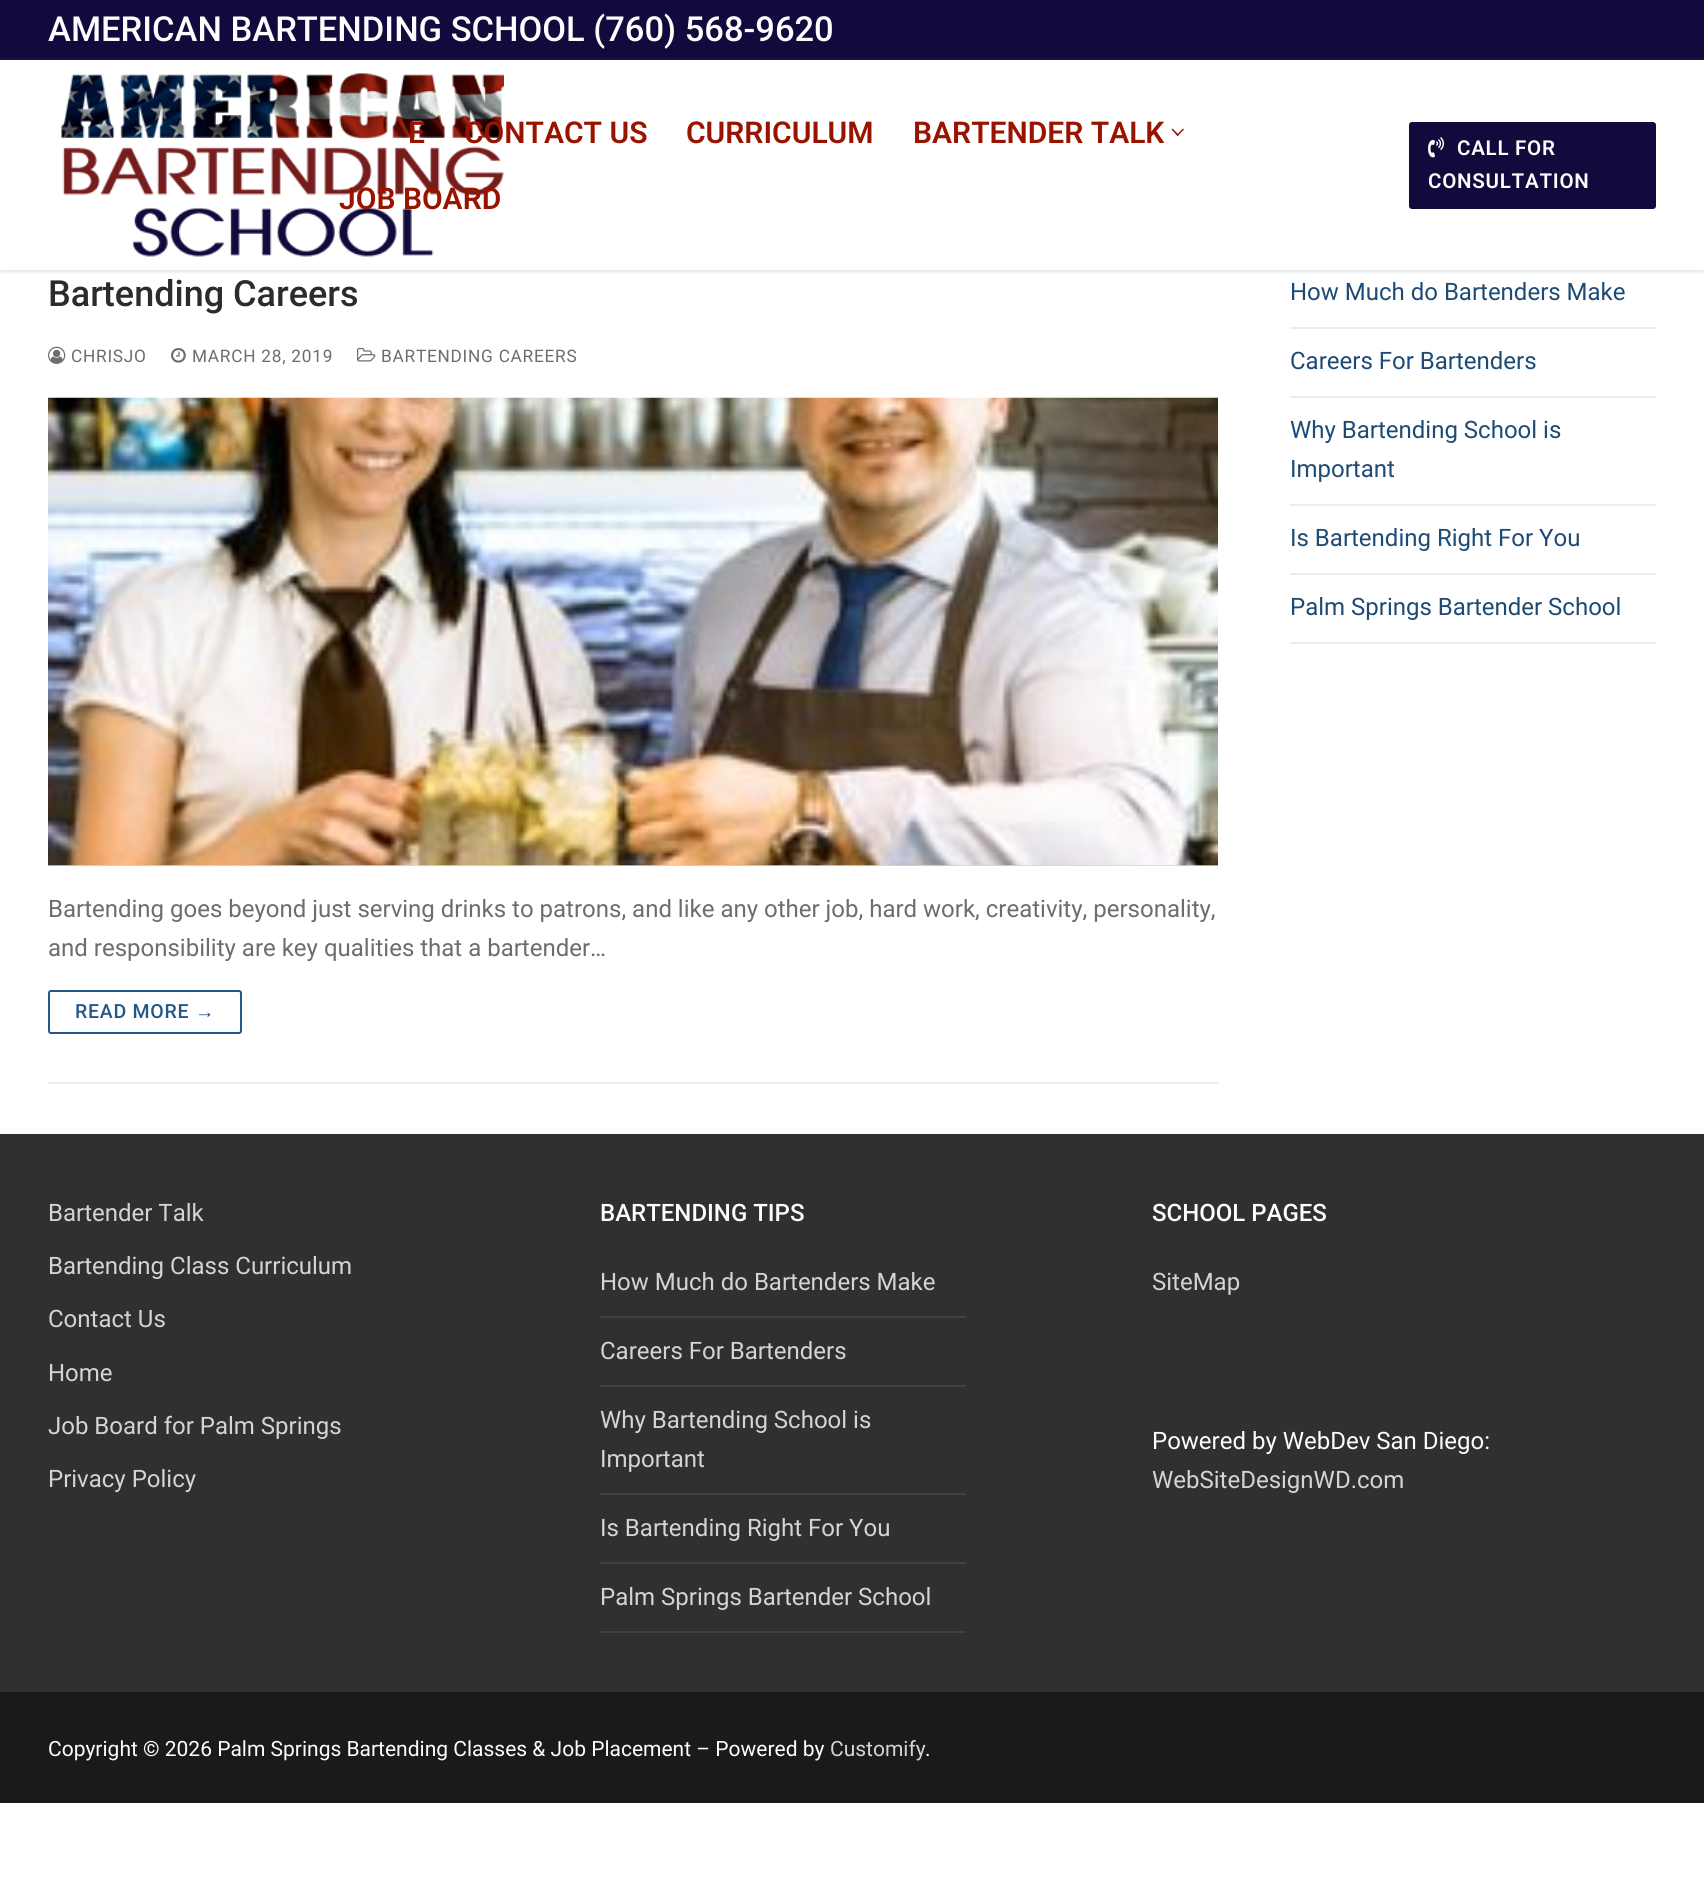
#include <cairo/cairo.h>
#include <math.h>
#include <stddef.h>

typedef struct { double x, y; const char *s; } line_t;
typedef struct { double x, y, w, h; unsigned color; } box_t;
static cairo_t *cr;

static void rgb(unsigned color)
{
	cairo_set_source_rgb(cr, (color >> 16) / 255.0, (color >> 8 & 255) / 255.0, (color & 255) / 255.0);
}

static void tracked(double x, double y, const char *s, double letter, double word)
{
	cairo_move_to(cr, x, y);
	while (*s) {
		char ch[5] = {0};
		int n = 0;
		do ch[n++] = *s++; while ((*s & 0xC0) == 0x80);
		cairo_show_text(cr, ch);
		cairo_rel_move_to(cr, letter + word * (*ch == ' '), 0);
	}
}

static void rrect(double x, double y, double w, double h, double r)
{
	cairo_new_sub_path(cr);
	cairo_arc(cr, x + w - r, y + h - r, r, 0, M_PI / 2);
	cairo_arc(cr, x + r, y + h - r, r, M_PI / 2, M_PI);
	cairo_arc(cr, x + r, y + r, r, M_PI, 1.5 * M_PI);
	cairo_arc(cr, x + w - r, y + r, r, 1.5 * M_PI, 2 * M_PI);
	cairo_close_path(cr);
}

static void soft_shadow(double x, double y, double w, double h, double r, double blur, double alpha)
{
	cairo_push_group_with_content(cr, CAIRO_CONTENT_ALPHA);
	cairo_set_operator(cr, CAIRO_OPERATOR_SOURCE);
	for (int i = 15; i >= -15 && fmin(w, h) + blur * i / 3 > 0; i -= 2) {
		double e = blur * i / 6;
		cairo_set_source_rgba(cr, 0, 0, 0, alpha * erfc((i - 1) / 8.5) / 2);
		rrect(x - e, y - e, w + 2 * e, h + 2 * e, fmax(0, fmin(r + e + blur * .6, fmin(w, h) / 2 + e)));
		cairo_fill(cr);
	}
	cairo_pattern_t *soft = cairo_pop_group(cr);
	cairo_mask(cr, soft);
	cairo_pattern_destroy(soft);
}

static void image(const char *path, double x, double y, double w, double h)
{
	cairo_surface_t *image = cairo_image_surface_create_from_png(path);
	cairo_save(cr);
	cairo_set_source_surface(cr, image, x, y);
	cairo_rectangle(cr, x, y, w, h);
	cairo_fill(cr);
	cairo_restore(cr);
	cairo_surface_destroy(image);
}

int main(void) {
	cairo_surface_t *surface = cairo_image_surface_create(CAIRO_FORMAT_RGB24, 1704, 1898);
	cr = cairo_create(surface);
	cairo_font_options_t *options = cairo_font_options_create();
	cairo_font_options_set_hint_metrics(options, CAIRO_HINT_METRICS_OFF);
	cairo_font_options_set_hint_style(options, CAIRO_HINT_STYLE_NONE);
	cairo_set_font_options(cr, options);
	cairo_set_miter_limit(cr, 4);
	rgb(0xffffff);
	cairo_paint(cr);
	rgb(0x110b3d);
	cairo_rectangle(cr, 0, 0, 1704, 60);
	cairo_fill(cr);
	cairo_save(cr);
	cairo_set_fill_rule(cr, CAIRO_FILL_RULE_EVEN_ODD);
	cairo_new_path(cr);
	cairo_move_to(cr, 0, 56);
	cairo_line_to(cr, 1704, 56);
	cairo_line_to(cr, 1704, 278);
	cairo_line_to(cr, 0, 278);
	cairo_close_path(cr);
	cairo_move_to(cr, 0, 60);
	cairo_line_to(cr, 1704, 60);
	cairo_line_to(cr, 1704, 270);
	cairo_line_to(cr, 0, 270);
	cairo_close_path(cr);
	cairo_clip(cr);
	rgb(0xe1e5ea);
	soft_shadow(0, 62, 1704, 210, 0, 1.5, 1);
	cairo_restore(cr);
	image("img/1.png", 61, 73, 443, 184);
	rgb(0x991400);
	cairo_new_path(cr);
	cairo_move_to(cr, 1177.5, 136);
	cairo_line_to(cr, 1171.5, 129.5);
	cairo_line_to(cr, 1172.5, 128.5);
	cairo_line_to(cr, 1179, 135);
	cairo_close_path(cr);
	cairo_fill(cr);
	cairo_new_path(cr);
	cairo_move_to(cr, 1177.5, 136);
	cairo_line_to(cr, 1176.5, 135);
	cairo_line_to(cr, 1183, 128.5);
	cairo_line_to(cr, 1184, 129.5);
	cairo_close_path(cr);
	cairo_fill(cr);
	rgb(0x110b3d);
	rrect(1409, 122, 247, 87, 3);
	cairo_fill(cr);
	image("img/2.png", 1428, 137, 16, 21);
	rgb(0xeaecee);
	cairo_rectangle(cr, 48, 1082, 1170, 2);
	cairo_fill(cr);
	image("img/3.png", 48, 346, 18, 18);
	image("img/4.png", 171, 347, 15, 16);
	image("img/5.png", 357, 347, 19, 15);
	rgb(0xd5d5d5);
	cairo_rectangle(cr, 48, 865, 1170, 1);
	cairo_fill(cr);
	image("img/6.png", 48, 397, 1170, 469);
	rrect(49, 991, 192, 42, 2);
	rgb(0x235787);
	cairo_stroke(cr);
	{
		static const box_t items[] = {
			{1290, 327, 366, 2, 0xeaecee},
			{1290, 396, 366, 2, 0xeaecee},
			{1290, 504, 366, 2, 0xeaecee},
			{1290, 573, 366, 2, 0xeaecee},
			{1290, 642, 366, 2, 0xeaecee},
			{0, 1134, 1704, 558, 0x303030},
			{600, 1316, 366, 2, 0x414141},
			{600, 1385, 366, 2, 0x414141},
			{600, 1493, 366, 2, 0x414141},
			{600, 1562, 366, 2, 0x414141},
			{600, 1631, 366, 2, 0x414141},
			{0, 1692, 1704, 111, 0x1a1a1a},
		};
		for (size_t i = 0; i < sizeof items / sizeof *items; i++) {
			rgb(items[i].color);
			cairo_rectangle(cr, items[i].x, items[i].y, items[i].w, items[i].h);
			cairo_fill(cr);
		}
	}
	cairo_select_font_face(cr, "Roboto Medium", CAIRO_FONT_SLANT_NORMAL, CAIRO_FONT_WEIGHT_NORMAL);
	cairo_set_font_size(cr, 34.5);
	rgb(0xfdfdfd);
	cairo_move_to(cr, 48, 41);
	cairo_show_text(cr, "AMERICAN BARTENDING SCHOOL (760) 568-9620");
	cairo_select_font_face(cr, "Roboto SemiBold", CAIRO_FONT_SLANT_NORMAL, CAIRO_FONT_WEIGHT_NORMAL);
	cairo_set_font_size(cr, 30);
	rgb(0x991400);
	{
		static const line_t items[] = {
			{408, 143, "E"},
			{464, 143, "CONTACT US"},
			{686, 143, "CURRICULUM"},
			{913, 143, "BARTENDER TALK"},
			{339, 209, "JOB BOARD"},
		};
		for (size_t i = 0; i < sizeof items / sizeof *items; i++) {
			cairo_move_to(cr, items[i].x, items[i].y);
			cairo_show_text(cr, items[i].s);
		}
	}
	cairo_set_font_size(cr, 20.5);
	rgb(0xfdfdfd);
	tracked(1457, 155, "CALL FOR", 0.75, 0);
	tracked(1428, 188, "CONSULTATION", 0.75, 0);
	cairo_select_font_face(cr, "Roboto Medium", CAIRO_FONT_SLANT_NORMAL, CAIRO_FONT_WEIGHT_NORMAL);
	cairo_set_font_size(cr, 36);
	rgb(0x2b2b2b);
	cairo_move_to(cr, 48, 306);
	cairo_show_text(cr, "Bartending Careers");
	cairo_select_font_face(cr, "Roboto", CAIRO_FONT_SLANT_NORMAL, CAIRO_FONT_WEIGHT_NORMAL);
	cairo_set_font_size(cr, 17.25);
	rgb(0x6d6d6d);
	{
		static const line_t items[] = {
			{71, 362, "CHRISJO"},
			{192, 362, "MARCH 28, 2019"},
			{381, 362, "BARTENDING CAREERS"},
		};
		for (size_t i = 0; i < sizeof items / sizeof *items; i++) {
			tracked(items[i].x, items[i].y, items[i].s, 0.75, 0);
		}
	}
	cairo_set_font_size(cr, 24);
	cairo_move_to(cr, 48, 917);
	cairo_show_text(cr, "Bartending goes beyond just serving drinks to patrons, and like any other job, hard work, creativity, personality,");
	cairo_move_to(cr, 48, 956);
	cairo_show_text(cr, "and responsibility are key qualities that a bartender…");
	cairo_select_font_face(cr, "Roboto Medium", CAIRO_FONT_SLANT_NORMAL, CAIRO_FONT_WEIGHT_NORMAL);
	cairo_set_font_size(cr, 19.5);
	rgb(0x235787);
	tracked(75, 1018, "READ MORE", 0.75, 0);
	cairo_select_font_face(cr, "Liberation Sans", CAIRO_FONT_SLANT_NORMAL, CAIRO_FONT_WEIGHT_NORMAL);
	tracked(195, 1018, "→", 0.75, 0);
	cairo_select_font_face(cr, "Roboto", CAIRO_FONT_SLANT_NORMAL, CAIRO_FONT_WEIGHT_NORMAL);
	cairo_set_font_size(cr, 24);
	rgb(0x1e4b75);
	{
		static const line_t items[] = {
			{1290, 300, "How Much do Bartenders Make"},
			{1290, 369, "Careers For Bartenders"},
			{1290, 438, "Why Bartending School is"},
			{1290, 477, "Important"},
			{1290, 546, "Is Bartending Right For You"},
			{1290, 615, "Palm Springs Bartender School"},
		};
		for (size_t i = 0; i < sizeof items / sizeof *items; i++) {
			cairo_move_to(cr, items[i].x, items[i].y);
			cairo_show_text(cr, items[i].s);
		}
	}
	rgb(0xd4d4d4);
	{
		static const line_t items[] = {
			{48, 1221, "Bartender Talk"},
			{48, 1274, "Bartending Class Curriculum"},
			{48, 1327, "Contact Us"},
			{48, 1381, "Home"},
			{48, 1434, "Job Board for Palm Springs"},
			{48, 1487, "Privacy Policy"},
		};
		for (size_t i = 0; i < sizeof items / sizeof *items; i++) {
			cairo_move_to(cr, items[i].x, items[i].y);
			cairo_show_text(cr, items[i].s);
		}
	}
	cairo_select_font_face(cr, "Roboto Medium", CAIRO_FONT_SLANT_NORMAL, CAIRO_FONT_WEIGHT_NORMAL);
	rgb(0xfdfdfd);
	cairo_move_to(cr, 600, 1221);
	cairo_show_text(cr, "BARTENDING TIPS");
	cairo_select_font_face(cr, "Roboto", CAIRO_FONT_SLANT_NORMAL, CAIRO_FONT_WEIGHT_NORMAL);
	rgb(0xd4d4d4);
	{
		static const line_t items[] = {
			{600, 1290, "How Much do Bartenders Make"},
			{600, 1359, "Careers For Bartenders"},
			{600, 1428, "Why Bartending School is"},
			{600, 1467, "Important"},
			{600, 1536, "Is Bartending Right For You"},
			{600, 1605, "Palm Springs Bartender School"},
		};
		for (size_t i = 0; i < sizeof items / sizeof *items; i++) {
			cairo_move_to(cr, items[i].x, items[i].y);
			cairo_show_text(cr, items[i].s);
		}
	}
	cairo_select_font_face(cr, "Roboto Medium", CAIRO_FONT_SLANT_NORMAL, CAIRO_FONT_WEIGHT_NORMAL);
	rgb(0xfdfdfd);
	cairo_move_to(cr, 1152, 1221);
	cairo_show_text(cr, "SCHOOL PAGES");
	cairo_select_font_face(cr, "Roboto", CAIRO_FONT_SLANT_NORMAL, CAIRO_FONT_WEIGHT_NORMAL);
	rgb(0xd4d4d4);
	cairo_move_to(cr, 1152, 1290);
	cairo_show_text(cr, "SiteMap");
	rgb(0xfdfdfd);
	cairo_move_to(cr, 1152, 1449);
	cairo_show_text(cr, "Powered by WebDev San Diego:");
	rgb(0xd4d4d4);
	cairo_move_to(cr, 1152, 1488);
	cairo_show_text(cr, "WebSiteDesignWD.com");
	cairo_set_font_size(cr, 21);
	rgb(0xfdfdfd);
	cairo_move_to(cr, 48, 1756);
	cairo_show_text(cr, "Copyright © 2026 Palm Springs Bartending Classes & Job Placement – Powered by");
	rgb(0xd4d4d4);
	cairo_move_to(cr, 830, 1756);
	cairo_show_text(cr, "Customify");
	rgb(0xfdfdfd);
	cairo_move_to(cr, 925, 1756);
	cairo_show_text(cr, ".");
	cairo_surface_write_to_png(surface, "page.png");
	cairo_font_options_destroy(options);
	cairo_destroy(cr);
	cairo_surface_destroy(surface);
	return 0;
}
